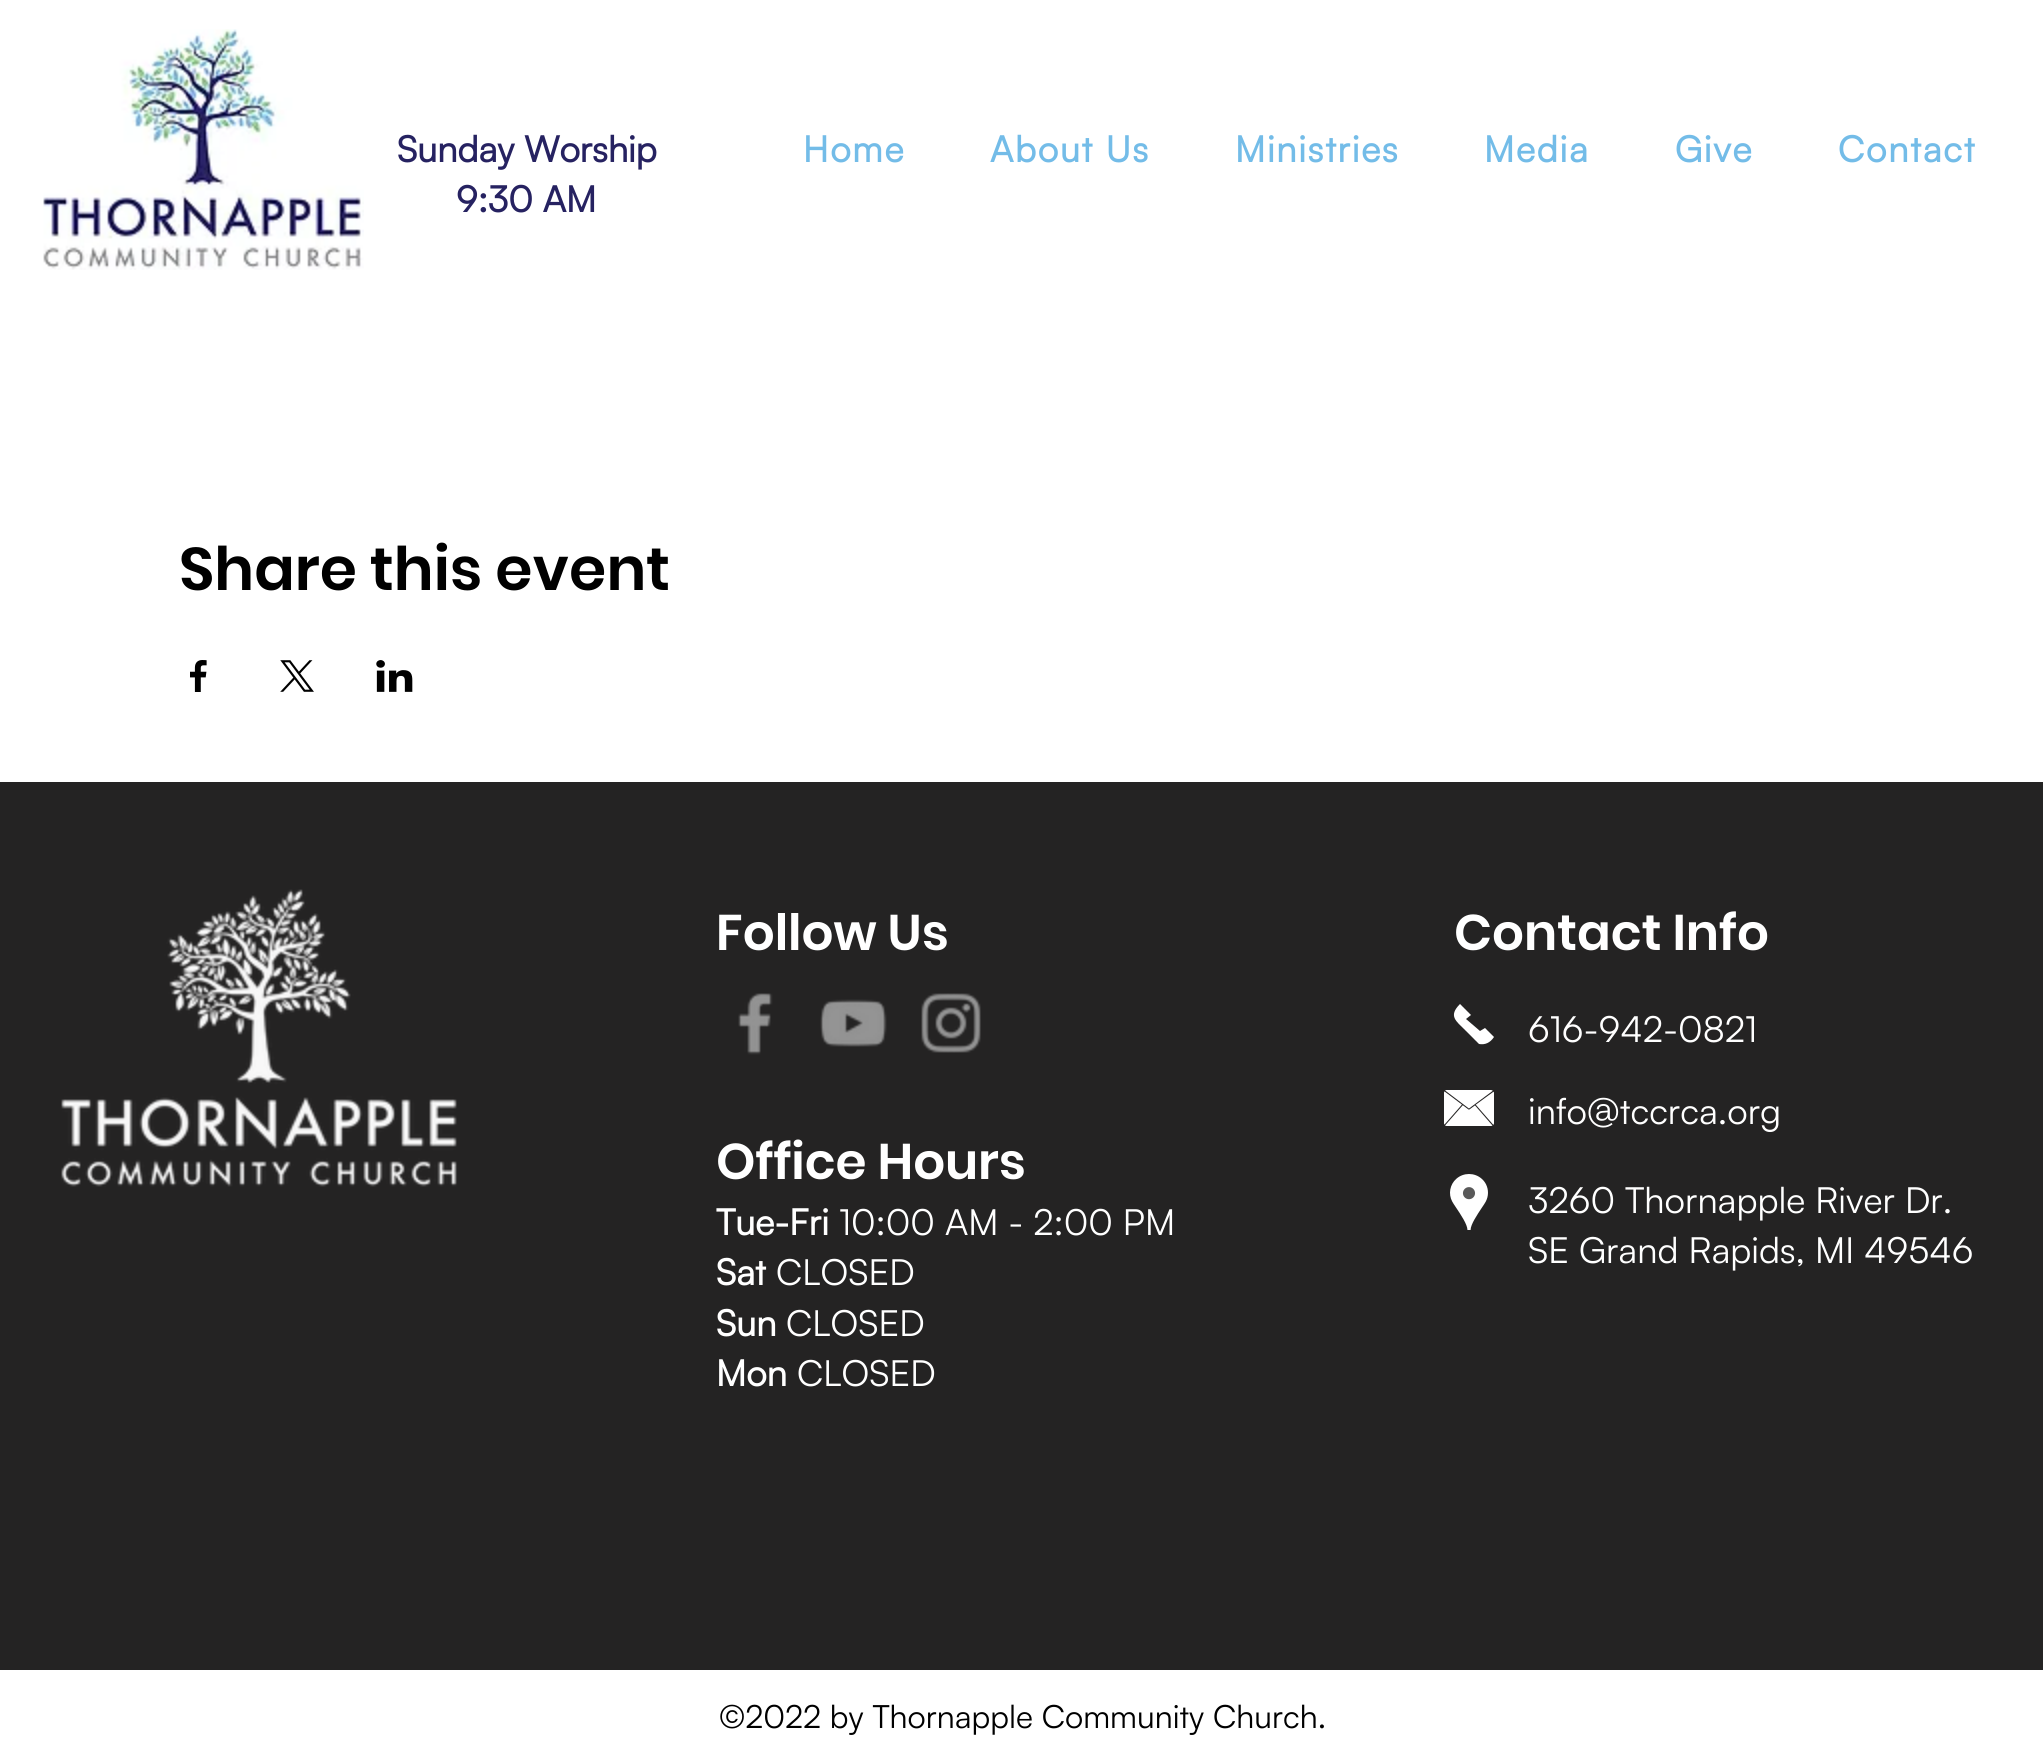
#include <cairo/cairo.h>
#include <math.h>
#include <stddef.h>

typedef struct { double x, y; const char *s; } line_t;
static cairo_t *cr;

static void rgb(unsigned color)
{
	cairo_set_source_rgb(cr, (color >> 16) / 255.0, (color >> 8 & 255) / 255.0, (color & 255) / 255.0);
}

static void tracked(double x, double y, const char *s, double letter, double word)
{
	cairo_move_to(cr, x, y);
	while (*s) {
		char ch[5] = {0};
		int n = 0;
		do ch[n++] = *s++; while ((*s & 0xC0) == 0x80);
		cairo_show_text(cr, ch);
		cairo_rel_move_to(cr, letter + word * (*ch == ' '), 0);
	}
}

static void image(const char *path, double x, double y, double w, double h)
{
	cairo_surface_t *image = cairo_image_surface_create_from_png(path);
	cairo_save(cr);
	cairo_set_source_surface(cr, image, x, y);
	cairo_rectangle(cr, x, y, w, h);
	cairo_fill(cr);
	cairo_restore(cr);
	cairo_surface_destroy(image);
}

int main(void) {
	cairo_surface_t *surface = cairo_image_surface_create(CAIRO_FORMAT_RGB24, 2043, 1738);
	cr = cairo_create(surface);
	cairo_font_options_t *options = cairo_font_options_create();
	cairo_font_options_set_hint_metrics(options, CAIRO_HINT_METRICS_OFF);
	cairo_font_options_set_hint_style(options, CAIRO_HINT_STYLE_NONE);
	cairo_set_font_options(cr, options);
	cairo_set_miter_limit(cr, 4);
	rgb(0xffffff);
	cairo_paint(cr);
	image("img/1.png", 43, 29, 321, 241);
	image("img/2.png", 190, 660, 17, 32);
	image("img/3.png", 280, 660, 34, 32);
	image("img/4.png", 376, 660, 37, 32);
	rgb(0x242323);
	cairo_rectangle(cr, 0, 782, 2043, 888);
	cairo_fill(cr);
	image("img/5.png", 61, 889, 396, 298);
	image("img/6.png", 738, 993, 35, 62);
	image("img/7.png", 820, 999, 67, 48);
	image("img/8.png", 921, 993, 60, 60);
	rgb(0xffffff);
	cairo_new_path(cr);
	cairo_move_to(cr, 1460, 1004);
	cairo_curve_to(cr, 1448, 1016, 1456, 1021, 1465, 1030);
	cairo_line_to(cr, 1479, 1044);
	cairo_curve_to(cr, 1485, 1045, 1490, 1043, 1494, 1037);
	cairo_line_to(cr, 1485, 1028);
	cairo_line_to(cr, 1480, 1031);
	cairo_line_to(cr, 1466, 1019);
	cairo_line_to(cr, 1471, 1015);
	cairo_close_path(cr);
	cairo_fill(cr);
	image("img/9.png", 1444, 1090, 50, 36);
	image("img/10.png", 1450, 1174, 38, 56);
	cairo_select_font_face(cr, "Satoshi", CAIRO_FONT_SLANT_NORMAL, CAIRO_FONT_WEIGHT_BOLD);
	cairo_set_font_size(cr, 36);
	rgb(0x262261);
	cairo_move_to(cr, 397, 162);
	cairo_show_text(cr, "Sunday Worship");
	cairo_move_to(cr, 456, 212);
	cairo_show_text(cr, "9:30 AM");
	rgb(0x73bce8);
	{
		static const line_t items[] = {
			{803, 162, "Home"},
			{990, 162, "About Us"},
			{1235, 162, "Ministries"},
			{1484, 162, "Media"},
			{1675, 162, "Give"},
			{1838, 162, "Contact"},
		};
		for (size_t i = 0; i < sizeof items / sizeof *items; i++) {
			tracked(items[i].x, items[i].y, items[i].s, 1.75, 0);
		}
	}
	cairo_select_font_face(cr, "Poppins SemiBold", CAIRO_FONT_SLANT_NORMAL, CAIRO_FONT_WEIGHT_NORMAL);
	cairo_set_font_size(cr, 60);
	rgb(0x000000);
	cairo_move_to(cr, 179, 590);
	cairo_show_text(cr, "Share this event");
	cairo_set_font_size(cr, 50);
	rgb(0xffffff);
	cairo_move_to(cr, 716, 950);
	cairo_show_text(cr, "Follow Us");
	cairo_move_to(cr, 1454, 950);
	cairo_show_text(cr, "Contact Info");
	cairo_select_font_face(cr, "Satoshi", CAIRO_FONT_SLANT_NORMAL, CAIRO_FONT_WEIGHT_NORMAL);
	cairo_set_font_size(cr, 36);
	cairo_move_to(cr, 1528, 1042);
	cairo_show_text(cr, "616-942-0821");
	cairo_move_to(cr, 1528, 1124);
	cairo_show_text(cr, "info@tccrca.org");
	cairo_select_font_face(cr, "Poppins SemiBold", CAIRO_FONT_SLANT_NORMAL, CAIRO_FONT_WEIGHT_NORMAL);
	cairo_set_font_size(cr, 50);
	cairo_move_to(cr, 716, 1179);
	cairo_show_text(cr, "Office Hours");
	cairo_select_font_face(cr, "Satoshi", CAIRO_FONT_SLANT_NORMAL, CAIRO_FONT_WEIGHT_BOLD);
	cairo_set_font_size(cr, 36);
	cairo_move_to(cr, 716, 1235);
	cairo_show_text(cr, "Tue-Fri");
	cairo_select_font_face(cr, "Satoshi", CAIRO_FONT_SLANT_NORMAL, CAIRO_FONT_WEIGHT_NORMAL);
	cairo_move_to(cr, 839, 1235);
	cairo_show_text(cr, "10:00 AM - 2:00 PM");
	cairo_select_font_face(cr, "Satoshi", CAIRO_FONT_SLANT_NORMAL, CAIRO_FONT_WEIGHT_BOLD);
	cairo_move_to(cr, 716, 1285);
	cairo_show_text(cr, "Sat");
	cairo_select_font_face(cr, "Satoshi", CAIRO_FONT_SLANT_NORMAL, CAIRO_FONT_WEIGHT_NORMAL);
	cairo_move_to(cr, 776, 1285);
	cairo_show_text(cr, "CLOSED");
	cairo_select_font_face(cr, "Satoshi", CAIRO_FONT_SLANT_NORMAL, CAIRO_FONT_WEIGHT_BOLD);
	cairo_move_to(cr, 716, 1336);
	cairo_show_text(cr, "Sun");
	cairo_select_font_face(cr, "Satoshi", CAIRO_FONT_SLANT_NORMAL, CAIRO_FONT_WEIGHT_NORMAL);
	cairo_move_to(cr, 786, 1336);
	cairo_show_text(cr, "CLOSED");
	cairo_select_font_face(cr, "Satoshi", CAIRO_FONT_SLANT_NORMAL, CAIRO_FONT_WEIGHT_BOLD);
	cairo_move_to(cr, 716, 1386);
	cairo_show_text(cr, "Mon");
	cairo_select_font_face(cr, "Satoshi", CAIRO_FONT_SLANT_NORMAL, CAIRO_FONT_WEIGHT_NORMAL);
	{
		static const line_t items[] = {
			{797, 1386, "CLOSED"},
			{1528, 1213, "3260 Thornapple River Dr."},
			{1528, 1263, "SE Grand Rapids, MI 49546"},
		};
		for (size_t i = 0; i < sizeof items / sizeof *items; i++) {
			cairo_move_to(cr, items[i].x, items[i].y);
			cairo_show_text(cr, items[i].s);
		}
	}
	cairo_set_font_size(cr, 32);
	rgb(0x000000);
	cairo_move_to(cr, 719, 1728);
	cairo_show_text(cr, "©2022 by Thornapple Community Church.");
	cairo_surface_write_to_png(surface, "page.png");
	cairo_font_options_destroy(options);
	cairo_destroy(cr);
	cairo_surface_destroy(surface);
	return 0;
}
